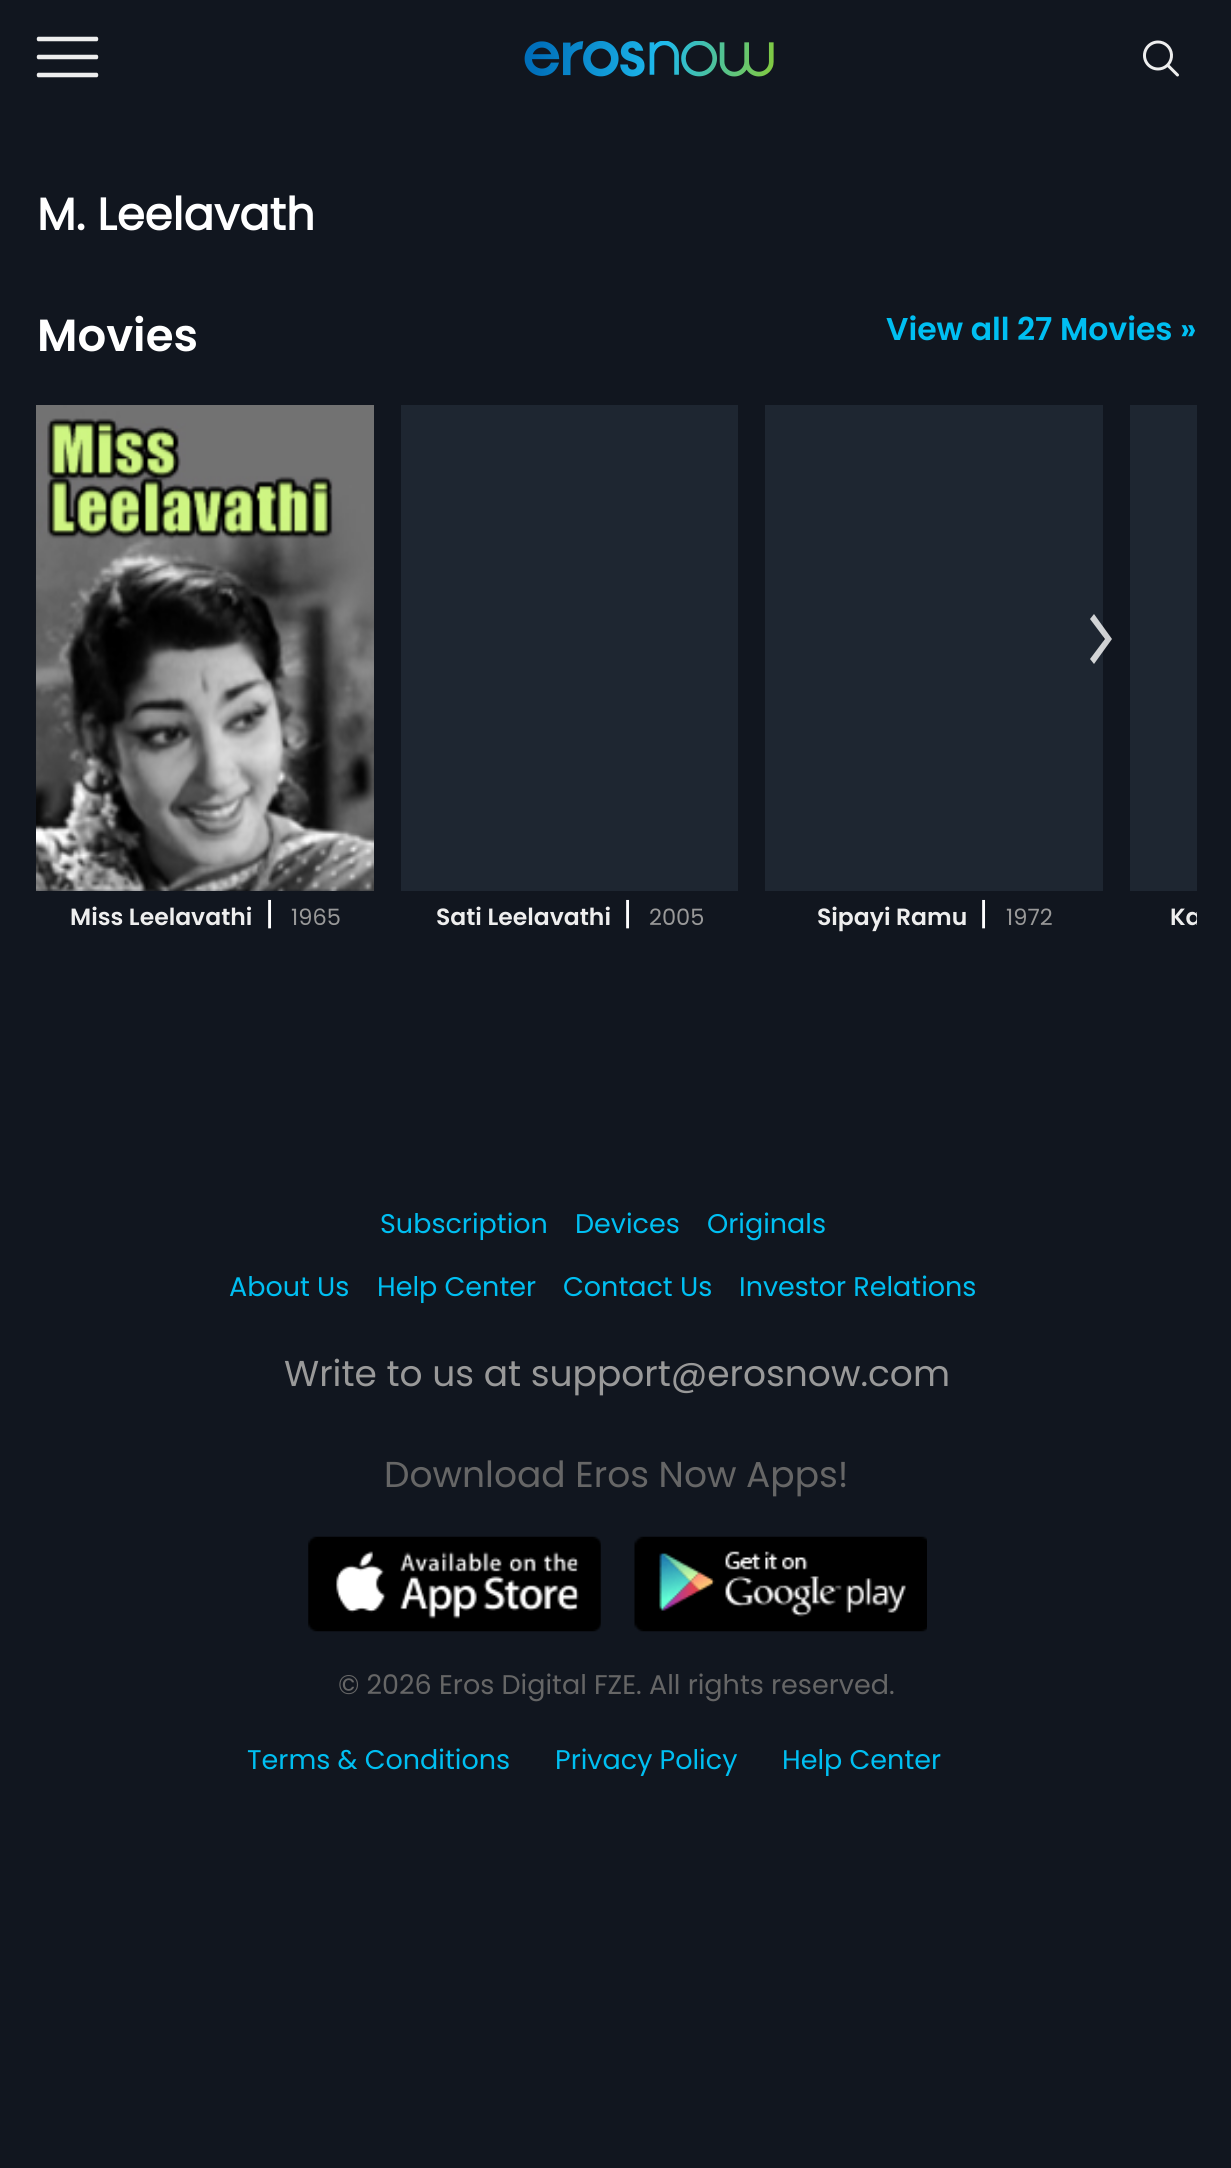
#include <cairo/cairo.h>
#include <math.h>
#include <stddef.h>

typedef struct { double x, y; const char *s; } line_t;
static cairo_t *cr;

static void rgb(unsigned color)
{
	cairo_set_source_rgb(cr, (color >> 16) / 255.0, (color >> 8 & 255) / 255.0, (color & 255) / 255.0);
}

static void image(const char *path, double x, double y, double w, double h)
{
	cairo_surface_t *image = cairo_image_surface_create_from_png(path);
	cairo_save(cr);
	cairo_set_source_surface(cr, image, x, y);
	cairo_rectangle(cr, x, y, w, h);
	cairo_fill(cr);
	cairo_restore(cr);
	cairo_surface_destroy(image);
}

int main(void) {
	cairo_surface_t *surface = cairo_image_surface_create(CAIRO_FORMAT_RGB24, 1231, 2168);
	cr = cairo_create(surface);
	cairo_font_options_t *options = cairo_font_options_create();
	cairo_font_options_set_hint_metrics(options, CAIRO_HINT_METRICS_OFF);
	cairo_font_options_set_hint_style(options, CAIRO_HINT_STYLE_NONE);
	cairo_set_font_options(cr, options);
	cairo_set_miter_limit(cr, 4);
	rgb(0x11161f);
	cairo_paint(cr);
	image("img/1.png", 36, 36, 63, 42);
	image("img/2.png", 524, 41, 250, 36);
	image("img/3.png", 1143, 40, 36, 37);
	rgb(0x1e2631);
	cairo_rectangle(cr, 765, 405, 338, 486);
	cairo_fill(cr);
	cairo_set_source_rgba(cr, 1, 1, 1, 0.8);
	cairo_new_path(cr);
	cairo_move_to(cr, 1112, 639);
	cairo_line_to(cr, 1094, 614);
	cairo_line_to(cr, 1090, 619);
	cairo_line_to(cr, 1105, 639);
	cairo_line_to(cr, 1090, 659);
	cairo_line_to(cr, 1094, 664);
	cairo_close_path(cr);
	cairo_fill(cr);
	image("img/4.png", 36, 405, 338, 486);
	rgb(0x1e2631);
	cairo_rectangle(cr, 401, 405, 337, 486);
	cairo_fill(cr);
	cairo_rectangle(cr, 1130, 405, 67, 486);
	cairo_fill(cr);
	image("img/5.png", 308, 1536, 293, 96);
	image("img/6.png", 634, 1536, 293, 96);
	cairo_select_font_face(cr, "Poppins", CAIRO_FONT_SLANT_NORMAL, CAIRO_FONT_WEIGHT_BOLD);
	cairo_set_font_size(cr, 45);
	rgb(0xffffff);
	cairo_move_to(cr, 37, 230);
	cairo_show_text(cr, "M. Leelavath");
	cairo_select_font_face(cr, "Poppins SemiBold", CAIRO_FONT_SLANT_NORMAL, CAIRO_FONT_WEIGHT_NORMAL);
	cairo_move_to(cr, 37, 351);
	cairo_show_text(cr, "Movies");
	cairo_set_font_size(cr, 31.5);
	rgb(0x00bff2);
	cairo_move_to(cr, 886, 340);
	cairo_show_text(cr, "View all 27 Movies »");
	cairo_set_font_size(cr, 23.5);
	rgb(0xeeeeee);
	cairo_move_to(cr, 70, 925);
	cairo_show_text(cr, "Miss Leelavathi");
	cairo_select_font_face(cr, "Poppins", CAIRO_FONT_SLANT_NORMAL, CAIRO_FONT_WEIGHT_NORMAL);
	cairo_set_font_size(cr, 31.5);
	rgb(0xffffff);
	cairo_move_to(cr, 265, 925);
	cairo_show_text(cr, "|");
	cairo_set_font_size(cr, 22.5);
	rgb(0x999999);
	cairo_move_to(cr, 291, 925);
	cairo_show_text(cr, "1965");
	cairo_select_font_face(cr, "Poppins SemiBold", CAIRO_FONT_SLANT_NORMAL, CAIRO_FONT_WEIGHT_NORMAL);
	cairo_set_font_size(cr, 23.5);
	rgb(0xeeeeee);
	cairo_move_to(cr, 436, 925);
	cairo_show_text(cr, "Sati Leelavathi");
	cairo_select_font_face(cr, "Poppins", CAIRO_FONT_SLANT_NORMAL, CAIRO_FONT_WEIGHT_NORMAL);
	cairo_set_font_size(cr, 31.5);
	rgb(0xffffff);
	cairo_move_to(cr, 623, 925);
	cairo_show_text(cr, "|");
	cairo_set_font_size(cr, 22.5);
	rgb(0x999999);
	cairo_move_to(cr, 649, 925);
	cairo_show_text(cr, "2005");
	cairo_select_font_face(cr, "Poppins SemiBold", CAIRO_FONT_SLANT_NORMAL, CAIRO_FONT_WEIGHT_NORMAL);
	cairo_set_font_size(cr, 23.5);
	rgb(0xeeeeee);
	cairo_move_to(cr, 817, 925);
	cairo_show_text(cr, "Sipayi Ramu");
	cairo_select_font_face(cr, "Poppins", CAIRO_FONT_SLANT_NORMAL, CAIRO_FONT_WEIGHT_NORMAL);
	cairo_set_font_size(cr, 31.5);
	rgb(0xffffff);
	cairo_move_to(cr, 979, 925);
	cairo_show_text(cr, "|");
	cairo_set_font_size(cr, 22.5);
	rgb(0x999999);
	cairo_move_to(cr, 1006, 925);
	cairo_show_text(cr, "1972");
	cairo_save(cr);
	cairo_rectangle(cr, 1170, 891, 27, 47);
	cairo_clip(cr);
	cairo_select_font_face(cr, "Poppins SemiBold", CAIRO_FONT_SLANT_NORMAL, CAIRO_FONT_WEIGHT_NORMAL);
	cairo_set_font_size(cr, 23.5);
	rgb(0xeeeeee);
	cairo_move_to(cr, 1170, 925);
	cairo_show_text(cr, "Ka");
	cairo_restore(cr);
	cairo_set_font_size(cr, 27);
	rgb(0x00bff2);
	{
		static const line_t items[] = {
			{380, 1233, "Subscription"},
			{575, 1233, "Devices"},
			{707, 1233, "Originals"},
			{229, 1296, "About Us"},
			{377, 1296, "Help Center"},
			{563, 1296, "Contact Us"},
			{739, 1296, "Investor Relations"},
		};
		for (size_t i = 0; i < sizeof items / sizeof *items; i++) {
			cairo_move_to(cr, items[i].x, items[i].y);
			cairo_show_text(cr, items[i].s);
		}
	}
	cairo_set_font_size(cr, 36);
	rgb(0x999999);
	cairo_move_to(cr, 284, 1386);
	cairo_show_text(cr, "Write to us at support@erosnow.com");
	rgb(0x666666);
	cairo_move_to(cr, 384, 1487);
	cairo_show_text(cr, "Download Eros Now Apps!");
	cairo_set_font_size(cr, 27);
	cairo_move_to(cr, 338, 1694);
	cairo_show_text(cr, "© 2026 Eros Digital FZE. All rights reserved.");
	rgb(0x00bff2);
	{
		static const line_t items[] = {
			{247, 1769, "Terms & Conditions"},
			{555, 1769, "Privacy Policy"},
			{782, 1769, "Help Center"},
		};
		for (size_t i = 0; i < sizeof items / sizeof *items; i++) {
			cairo_move_to(cr, items[i].x, items[i].y);
			cairo_show_text(cr, items[i].s);
		}
	}
	cairo_surface_write_to_png(surface, "page.png");
	cairo_font_options_destroy(options);
	cairo_destroy(cr);
	cairo_surface_destroy(surface);
	return 0;
}
